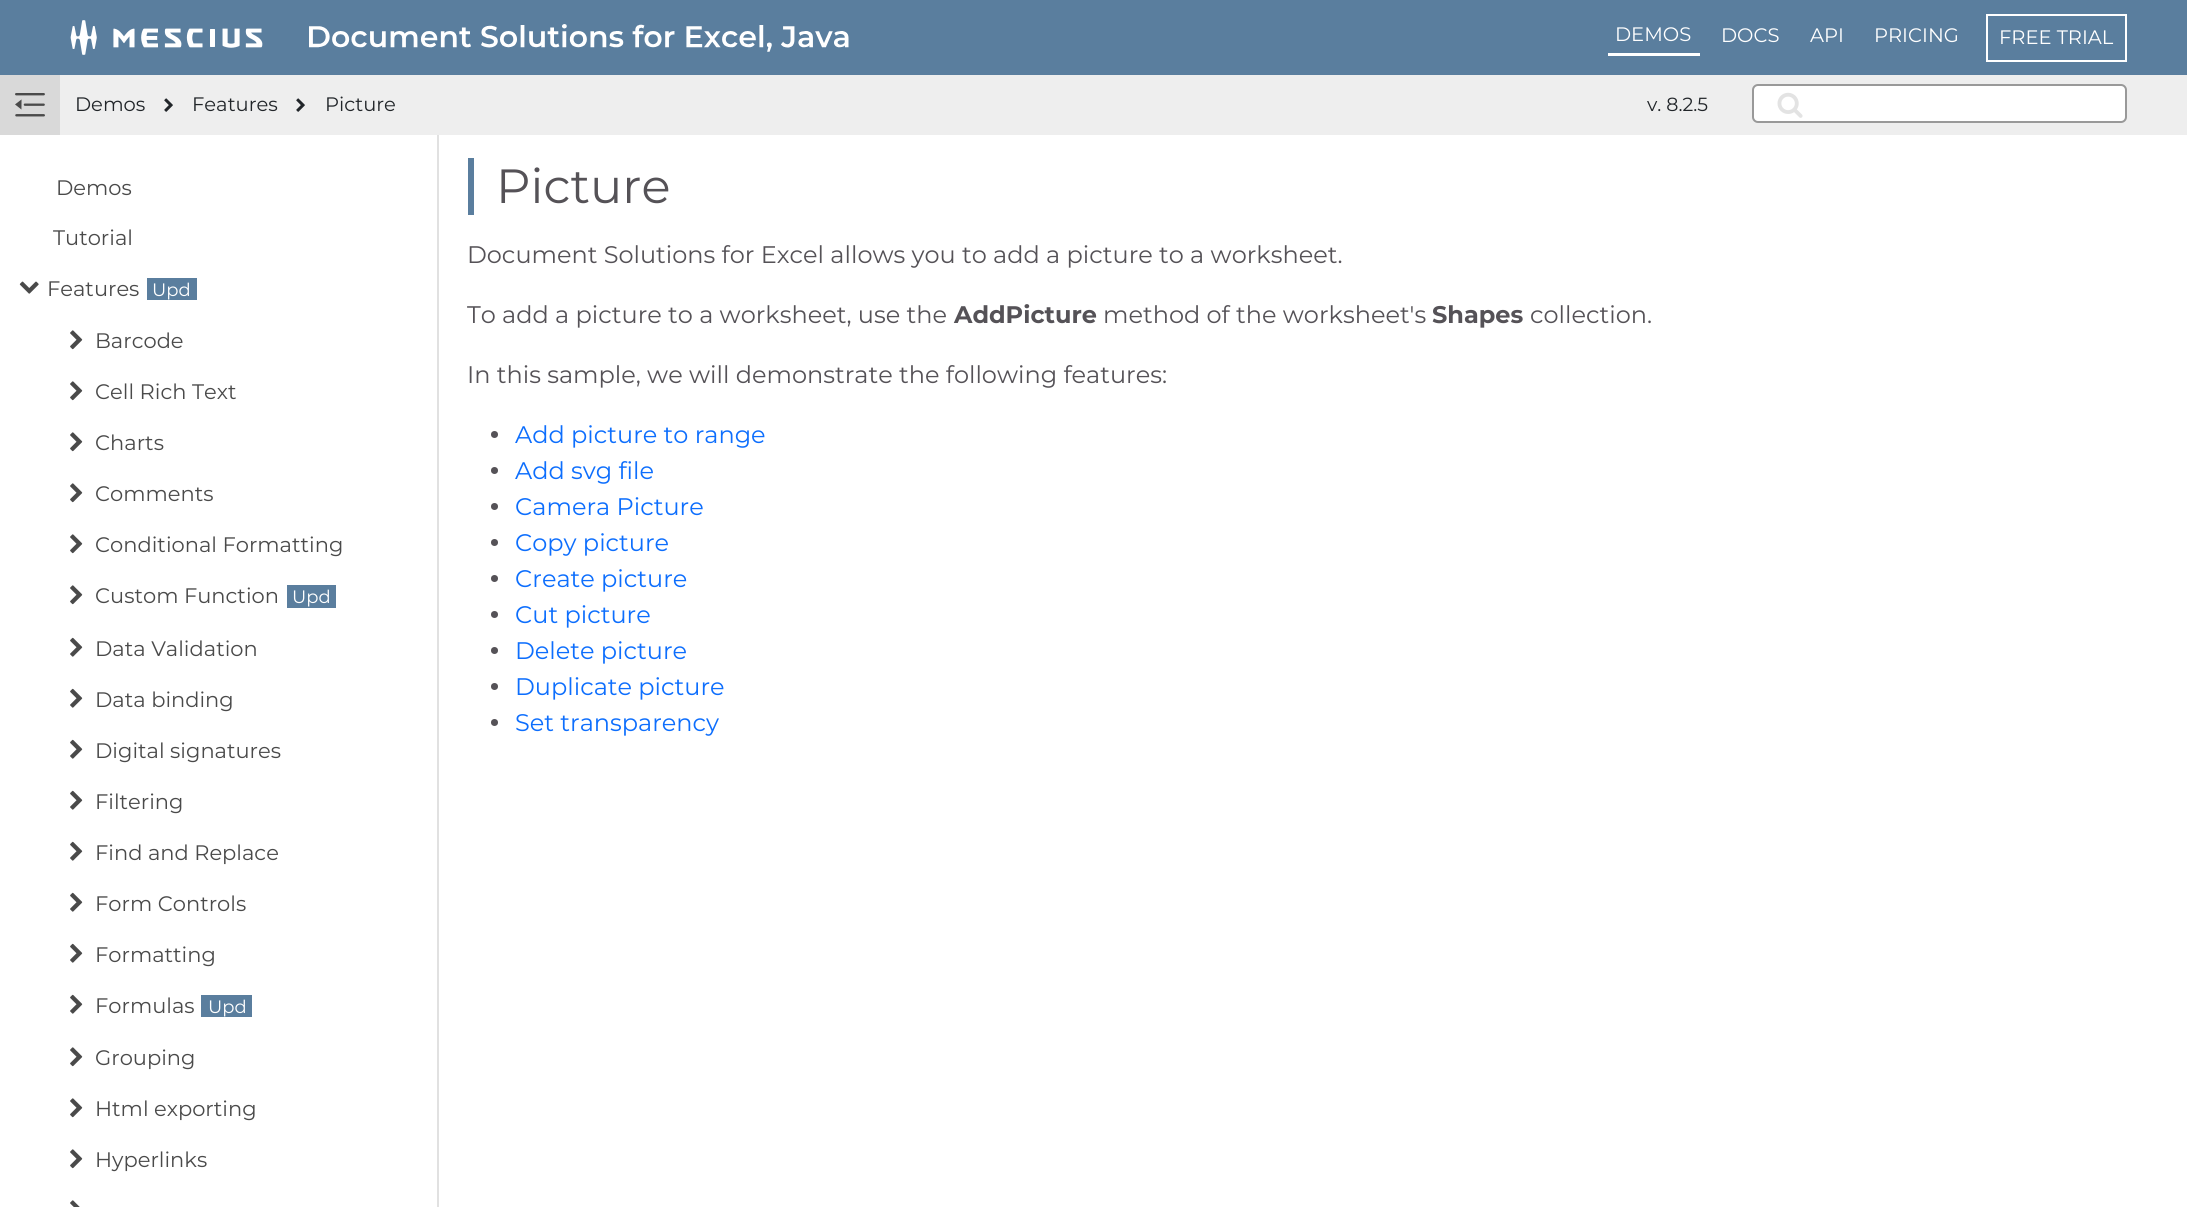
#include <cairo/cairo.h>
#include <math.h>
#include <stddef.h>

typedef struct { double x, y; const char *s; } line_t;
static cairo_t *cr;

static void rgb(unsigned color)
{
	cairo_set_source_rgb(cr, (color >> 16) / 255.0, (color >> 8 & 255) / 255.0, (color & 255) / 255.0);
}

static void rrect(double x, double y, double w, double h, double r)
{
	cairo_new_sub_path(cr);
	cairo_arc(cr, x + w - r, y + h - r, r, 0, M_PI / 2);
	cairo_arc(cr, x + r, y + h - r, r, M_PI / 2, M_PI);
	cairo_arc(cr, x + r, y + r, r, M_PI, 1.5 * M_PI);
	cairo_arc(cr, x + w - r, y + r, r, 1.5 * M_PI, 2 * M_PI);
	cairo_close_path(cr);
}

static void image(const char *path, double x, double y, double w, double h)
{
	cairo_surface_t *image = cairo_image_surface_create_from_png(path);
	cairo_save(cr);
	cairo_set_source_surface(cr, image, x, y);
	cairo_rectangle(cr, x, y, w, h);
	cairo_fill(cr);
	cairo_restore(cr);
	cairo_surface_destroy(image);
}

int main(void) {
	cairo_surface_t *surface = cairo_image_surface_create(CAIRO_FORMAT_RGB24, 2187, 1207);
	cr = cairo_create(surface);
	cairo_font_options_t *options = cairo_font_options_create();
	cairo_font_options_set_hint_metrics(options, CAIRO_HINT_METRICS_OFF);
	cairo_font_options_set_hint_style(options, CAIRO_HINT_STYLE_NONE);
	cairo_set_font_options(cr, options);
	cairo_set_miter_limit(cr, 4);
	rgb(0xffffff);
	cairo_paint(cr);
	rgb(0x5a7e9e);
	cairo_rectangle(cr, 0, 0, 2187, 75);
	cairo_fill(cr);
	image("img/1.png", 70, 20, 193, 35);
	image("img/2.png", 309, 24, 540, 28);
	rgb(0xffffff);
	cairo_rectangle(cr, 1608, 53, 92, 3);
	cairo_fill(cr);
	cairo_rectangle(cr, 1987, 15, 139, 46);
	cairo_stroke(cr);
	rgb(0xeeeeee);
	cairo_rectangle(cr, 60, 75, 2127, 60);
	cairo_fill(cr);
	rgb(0xd9d9d9);
	cairo_rectangle(cr, 0, 75, 60, 60);
	cairo_fill(cr);
	image("img/3.png", 15, 93, 30, 24);
	image("img/4.png", 164, 98, 9, 14);
	image("img/4.png", 296, 98, 9, 14);
	rgb(0xffffff);
	rrect(1753, 85, 373, 37, 5);
	cairo_fill_preserve(cr);
	rgb(0x999999);
	cairo_stroke(cr);
	image("img/5.png", 1777, 92, 26, 26);
	rgb(0xe1e1e1);
	cairo_rectangle(cr, 437, 135, 2, 1072);
	cairo_fill(cr);
	image("img/6.png", 19, 281, 20, 13);
	rgb(0x5a7e9e);
	cairo_rectangle(cr, 147, 278, 50, 22);
	cairo_fill(cr);
	image("img/7.png", 70, 330, 13, 20);
	image("img/7.png", 70, 381, 13, 20);
	image("img/7.png", 70, 432, 13, 20);
	image("img/7.png", 70, 483, 13, 20);
	image("img/7.png", 70, 534, 13, 20);
	image("img/7.png", 70, 585, 13, 20);
	cairo_rectangle(cr, 287, 585, 49, 23);
	cairo_fill(cr);
	image("img/8.png", 70, 637, 13, 20);
	image("img/8.png", 70, 688, 13, 20);
	image("img/8.png", 70, 739, 13, 20);
	image("img/8.png", 70, 790, 13, 20);
	image("img/8.png", 70, 841, 13, 20);
	image("img/8.png", 70, 892, 13, 20);
	image("img/8.png", 70, 943, 13, 20);
	image("img/8.png", 70, 994, 13, 20);
	cairo_rectangle(cr, 201, 995, 51, 22);
	cairo_fill(cr);
	image("img/7.png", 70, 1047, 13, 20);
	image("img/7.png", 70, 1098, 13, 20);
	image("img/7.png", 70, 1149, 13, 20);
	image("img/9.png", 70, 1200, 10, 7);
	cairo_rectangle(cr, 468, 158, 6, 57);
	cairo_fill(cr);
	rgb(0x555257);
	cairo_arc(cr, 494.5, 434.5, 3.5, 0, 2 * M_PI);
	cairo_fill(cr);
	cairo_arc(cr, 494.5, 470.5, 3.5, 0, 2 * M_PI);
	cairo_fill(cr);
	cairo_arc(cr, 494.5, 506.5, 3.5, 0, 2 * M_PI);
	cairo_fill(cr);
	cairo_arc(cr, 494.5, 542.5, 3.5, 0, 2 * M_PI);
	cairo_fill(cr);
	cairo_arc(cr, 494.5, 578.5, 3.5, 0, 2 * M_PI);
	cairo_fill(cr);
	cairo_arc(cr, 494.5, 614.5, 3.5, 0, 2 * M_PI);
	cairo_fill(cr);
	cairo_arc(cr, 494.5, 650.5, 3.5, 0, 2 * M_PI);
	cairo_fill(cr);
	cairo_arc(cr, 494.5, 686.5, 3.5, 0, 2 * M_PI);
	cairo_fill(cr);
	cairo_arc(cr, 494.5, 722.5, 3.5, 0, 2 * M_PI);
	cairo_fill(cr);
	cairo_select_font_face(cr, "Montserrat", CAIRO_FONT_SLANT_NORMAL, CAIRO_FONT_WEIGHT_NORMAL);
	cairo_set_font_size(cr, 19.5);
	rgb(0xffffff);
	{
		static const line_t items[] = {
			{1615, 41, "DEMOS"},
			{1721, 42, "DOCS"},
			{1810, 42, "API"},
			{1874, 42, "PRICING"},
			{1999, 44, "FREE TRIAL"},
		};
		for (size_t i = 0; i < sizeof items / sizeof *items; i++) {
			cairo_move_to(cr, items[i].x, items[i].y);
			cairo_show_text(cr, items[i].s);
		}
	}
	rgb(0x212529);
	{
		static const line_t items[] = {
			{75, 111, "Demos"},
			{192, 111, "Features"},
			{325, 111, "Picture"},
		};
		for (size_t i = 0; i < sizeof items / sizeof *items; i++) {
			cairo_move_to(cr, items[i].x, items[i].y);
			cairo_show_text(cr, items[i].s);
		}
	}
	cairo_set_font_size(cr, 19);
	cairo_move_to(cr, 1647, 111);
	cairo_show_text(cr, "v. 8.2.5");
	cairo_set_font_size(cr, 21);
	rgb(0x4a4a4a);
	{
		static const line_t items[] = {
			{56, 195, "Demos"},
			{53, 245, "Tutorial"},
			{47, 296, "Features"},
		};
		for (size_t i = 0; i < sizeof items / sizeof *items; i++) {
			cairo_move_to(cr, items[i].x, items[i].y);
			cairo_show_text(cr, items[i].s);
		}
	}
	cairo_set_font_size(cr, 18);
	rgb(0xffffff);
	cairo_move_to(cr, 152, 296);
	cairo_show_text(cr, "Upd");
	cairo_set_font_size(cr, 21);
	rgb(0x4a4a4a);
	{
		static const line_t items[] = {
			{95, 348, "Barcode"},
			{95, 399, "Cell Rich Text"},
			{95, 450, "Charts"},
			{95, 501, "Comments"},
			{95, 552, "Conditional Formatting"},
			{95, 603, "Custom Function"},
		};
		for (size_t i = 0; i < sizeof items / sizeof *items; i++) {
			cairo_move_to(cr, items[i].x, items[i].y);
			cairo_show_text(cr, items[i].s);
		}
	}
	cairo_set_font_size(cr, 18);
	rgb(0xffffff);
	cairo_move_to(cr, 292, 603);
	cairo_show_text(cr, "Upd");
	cairo_set_font_size(cr, 21);
	rgb(0x4a4a4a);
	{
		static const line_t items[] = {
			{95, 656, "Data Validation"},
			{95, 707, "Data binding"},
			{95, 758, "Digital signatures"},
			{95, 809, "Filtering"},
			{95, 860, "Find and Replace"},
			{95, 911, "Form Controls"},
			{95, 962, "Formatting"},
			{95, 1013, "Formulas"},
		};
		for (size_t i = 0; i < sizeof items / sizeof *items; i++) {
			cairo_move_to(cr, items[i].x, items[i].y);
			cairo_show_text(cr, items[i].s);
		}
	}
	cairo_set_font_size(cr, 18);
	rgb(0xffffff);
	cairo_move_to(cr, 208, 1013);
	cairo_show_text(cr, "Upd");
	cairo_set_font_size(cr, 21);
	rgb(0x4a4a4a);
	{
		static const line_t items[] = {
			{95, 1065, "Grouping"},
			{95, 1116, "Html exporting"},
			{95, 1167, "Hyperlinks"},
		};
		for (size_t i = 0; i < sizeof items / sizeof *items; i++) {
			cairo_move_to(cr, items[i].x, items[i].y);
			cairo_show_text(cr, items[i].s);
		}
	}
	cairo_set_font_size(cr, 48);
	rgb(0x555257);
	cairo_move_to(cr, 496, 203);
	cairo_show_text(cr, "Picture");
	cairo_set_font_size(cr, 24);
	cairo_move_to(cr, 467, 263);
	cairo_show_text(cr, "Document Solutions for Excel allows you to add a picture to a worksheet.");
	cairo_move_to(cr, 467, 323);
	cairo_show_text(cr, "To add a picture to a worksheet, use the");
	cairo_select_font_face(cr, "Montserrat", CAIRO_FONT_SLANT_NORMAL, CAIRO_FONT_WEIGHT_BOLD);
	cairo_move_to(cr, 954, 323);
	cairo_show_text(cr, "AddPicture");
	cairo_select_font_face(cr, "Montserrat", CAIRO_FONT_SLANT_NORMAL, CAIRO_FONT_WEIGHT_NORMAL);
	cairo_move_to(cr, 1103, 323);
	cairo_show_text(cr, "method of the worksheet's");
	cairo_select_font_face(cr, "Montserrat", CAIRO_FONT_SLANT_NORMAL, CAIRO_FONT_WEIGHT_BOLD);
	cairo_move_to(cr, 1432, 323);
	cairo_show_text(cr, "Shapes");
	cairo_select_font_face(cr, "Montserrat", CAIRO_FONT_SLANT_NORMAL, CAIRO_FONT_WEIGHT_NORMAL);
	cairo_move_to(cr, 1530, 323);
	cairo_show_text(cr, "collection.");
	cairo_move_to(cr, 467, 383);
	cairo_show_text(cr, "In this sample, we will demonstrate the following features:");
	rgb(0x0d6efd);
	{
		static const line_t items[] = {
			{515, 443, "Add picture to range"},
			{515, 479, "Add svg file"},
			{515, 515, "Camera Picture"},
			{515, 551, "Copy picture"},
			{515, 587, "Create picture"},
			{515, 623, "Cut picture"},
			{515, 659, "Delete picture"},
			{515, 695, "Duplicate picture"},
			{515, 731, "Set transparency"},
		};
		for (size_t i = 0; i < sizeof items / sizeof *items; i++) {
			cairo_move_to(cr, items[i].x, items[i].y);
			cairo_show_text(cr, items[i].s);
		}
	}
	cairo_surface_write_to_png(surface, "page.png");
	cairo_font_options_destroy(options);
	cairo_destroy(cr);
	cairo_surface_destroy(surface);
	return 0;
}
